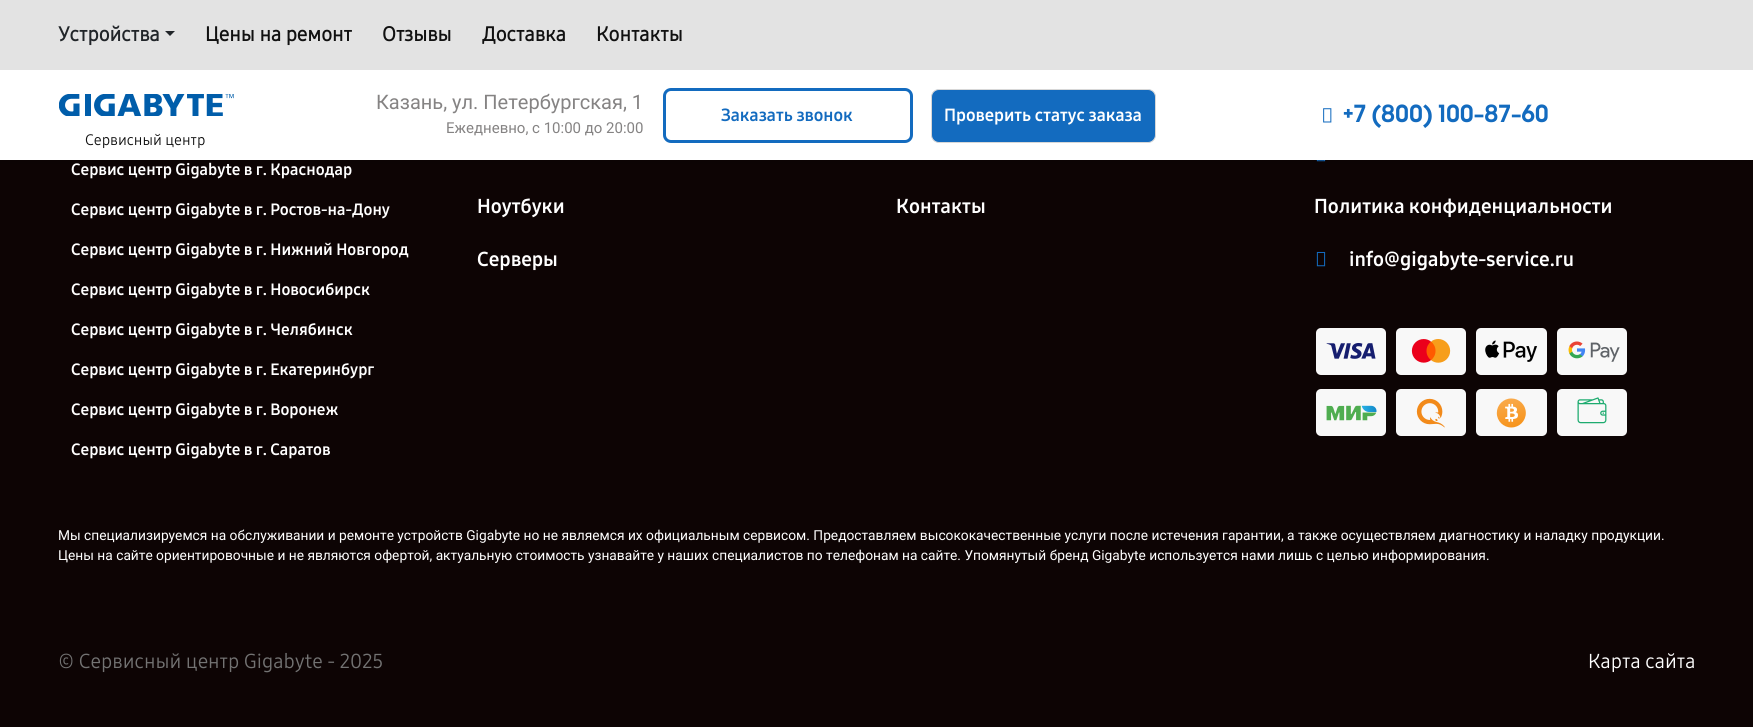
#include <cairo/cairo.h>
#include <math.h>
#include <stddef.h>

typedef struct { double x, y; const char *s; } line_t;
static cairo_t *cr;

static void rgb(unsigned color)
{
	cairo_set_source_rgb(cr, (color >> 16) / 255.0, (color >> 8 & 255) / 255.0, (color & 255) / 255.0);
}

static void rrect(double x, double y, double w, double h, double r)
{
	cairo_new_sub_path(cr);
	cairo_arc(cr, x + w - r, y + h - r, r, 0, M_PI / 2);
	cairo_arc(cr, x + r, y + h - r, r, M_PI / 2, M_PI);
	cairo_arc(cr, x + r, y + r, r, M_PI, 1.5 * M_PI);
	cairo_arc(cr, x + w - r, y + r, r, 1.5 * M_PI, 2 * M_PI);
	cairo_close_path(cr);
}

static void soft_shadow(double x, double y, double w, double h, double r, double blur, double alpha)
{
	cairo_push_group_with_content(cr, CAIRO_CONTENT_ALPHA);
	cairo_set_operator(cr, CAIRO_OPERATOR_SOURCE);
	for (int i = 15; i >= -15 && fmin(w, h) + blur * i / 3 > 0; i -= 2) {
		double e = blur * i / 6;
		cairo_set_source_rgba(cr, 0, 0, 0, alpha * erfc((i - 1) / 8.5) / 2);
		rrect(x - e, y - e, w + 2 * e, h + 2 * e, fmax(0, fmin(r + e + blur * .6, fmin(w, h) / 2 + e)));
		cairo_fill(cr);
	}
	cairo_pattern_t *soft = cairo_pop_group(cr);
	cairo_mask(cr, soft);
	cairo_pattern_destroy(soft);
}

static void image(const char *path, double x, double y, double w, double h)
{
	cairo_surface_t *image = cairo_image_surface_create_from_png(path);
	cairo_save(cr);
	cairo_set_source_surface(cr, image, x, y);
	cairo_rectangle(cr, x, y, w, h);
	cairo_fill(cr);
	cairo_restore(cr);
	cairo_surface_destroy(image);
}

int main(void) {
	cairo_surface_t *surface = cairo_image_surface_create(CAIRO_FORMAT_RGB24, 1753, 727);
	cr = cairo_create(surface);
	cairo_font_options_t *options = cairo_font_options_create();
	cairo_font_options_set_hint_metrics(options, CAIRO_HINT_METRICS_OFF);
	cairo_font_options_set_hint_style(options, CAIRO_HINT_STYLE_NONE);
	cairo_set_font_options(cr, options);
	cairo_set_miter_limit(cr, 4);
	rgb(0x0d0404);
	cairo_paint(cr);
	image("img/3.png", 1316, 160, 10, 2);
	rgb(0x000000);
	soft_shadow(-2, -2, 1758, 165, 0, 2, 0.1);
	rgb(0xffffff);
	cairo_rectangle(cr, 0, 70, 1753, 90);
	cairo_fill(cr);
	rgb(0xe3e3e3);
	cairo_rectangle(cr, 0, 0, 1753, 70);
	cairo_fill(cr);
	rgb(0x212529);
	cairo_new_path(cr);
	cairo_move_to(cr, 165, 31);
	cairo_line_to(cr, 175, 31);
	cairo_line_to(cr, 170, 36);
	cairo_close_path(cr);
	cairo_fill(cr);
	rrect(664.5, 89.5, 247, 52, 6.5);
	rgb(0x136bbf);
	cairo_set_line_width(cr, 3);
	cairo_stroke(cr);
	rrect(931.5, 89.5, 224, 53, 7.5);
	cairo_fill_preserve(cr);
	rgb(0xd7d7d7);
	cairo_set_line_width(cr, 1);
	cairo_stroke(cr);
	image("img/1.png", 1323, 108, 9, 15);
	image("img/2.png", 59, 94, 175, 22);
	image("img/4.png", 1316, 251, 10, 16);
	image("img/5.png", 1316, 328, 311, 108);
	cairo_select_font_face(cr, "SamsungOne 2", CAIRO_FONT_SLANT_NORMAL, CAIRO_FONT_WEIGHT_BOLD);
	cairo_set_font_size(cr, 20);
	rgb(0x212529);
	cairo_move_to(cr, 58, 41);
	cairo_show_text(cr, "Устройства");
	rgb(0x111111);
	{
		static const line_t items[] = {
			{205, 41, "Цены на ремонт"},
			{382, 41, "Отзывы"},
			{482, 41, "Доставка"},
			{596, 41, "Контакты"},
		};
		for (size_t i = 0; i < sizeof items / sizeof *items; i++) {
			cairo_move_to(cr, items[i].x, items[i].y);
			cairo_show_text(cr, items[i].s);
		}
	}
	cairo_select_font_face(cr, "Roboto", CAIRO_FONT_SLANT_NORMAL, CAIRO_FONT_WEIGHT_NORMAL);
	rgb(0x858383);
	cairo_move_to(cr, 376, 109);
	cairo_show_text(cr, "Казань, ул. Петербургская, 1");
	cairo_set_font_size(cr, 15);
	cairo_move_to(cr, 446, 133);
	cairo_show_text(cr, "Ежедневно, с 10:00 до 20:00");
	cairo_select_font_face(cr, "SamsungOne", CAIRO_FONT_SLANT_NORMAL, CAIRO_FONT_WEIGHT_BOLD);
	cairo_set_font_size(cr, 17.5);
	rgb(0x136bbf);
	cairo_move_to(cr, 721, 121);
	cairo_show_text(cr, "Заказать звонок");
	rgb(0xffffff);
	cairo_move_to(cr, 944, 121);
	cairo_show_text(cr, "Проверить статус заказа");
	cairo_select_font_face(cr, "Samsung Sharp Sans", CAIRO_FONT_SLANT_NORMAL, CAIRO_FONT_WEIGHT_BOLD);
	cairo_set_font_size(cr, 23.75);
	rgb(0x136bbf);
	cairo_move_to(cr, 1343, 122);
	cairo_show_text(cr, "+7 (800) 100-87-60");
	cairo_select_font_face(cr, "SamsungOne", CAIRO_FONT_SLANT_NORMAL, CAIRO_FONT_WEIGHT_NORMAL);
	cairo_set_font_size(cr, 15);
	rgb(0x111111);
	cairo_move_to(cr, 85, 145);
	cairo_show_text(cr, "Сервисный центр");
	cairo_select_font_face(cr, "SamsungOne", CAIRO_FONT_SLANT_NORMAL, CAIRO_FONT_WEIGHT_BOLD);
	cairo_set_font_size(cr, 16.25);
	rgb(0xffffff);
	{
		static const line_t items[] = {
			{71, 175, "Сервис центр Gigabyte в г. Краснодар"},
			{71, 215, "Сервис центр Gigabyte в г. Ростов-на-Дону"},
			{71, 255, "Сервис центр Gigabyte в г. Нижний Новгород"},
			{71, 295, "Сервис центр Gigabyte в г. Новосибирск"},
			{71, 335, "Сервис центр Gigabyte в г. Челябинск"},
			{71, 375, "Сервис центр Gigabyte в г. Екатеринбург"},
			{71, 415, "Сервис центр Gigabyte в г. Воронеж"},
			{71, 455, "Сервис центр Gigabyte в г. Саратов"},
		};
		for (size_t i = 0; i < sizeof items / sizeof *items; i++) {
			cairo_move_to(cr, items[i].x, items[i].y);
			cairo_show_text(cr, items[i].s);
		}
	}
	cairo_set_font_size(cr, 20);
	{
		static const line_t items[] = {
			{477, 213, "Ноутбуки"},
			{477, 266, "Серверы"},
			{896, 213, "Контакты"},
			{1314, 213, "Политика конфиденциальности"},
			{1349, 266, "info@gigabyte-service.ru"},
		};
		for (size_t i = 0; i < sizeof items / sizeof *items; i++) {
			cairo_move_to(cr, items[i].x, items[i].y);
			cairo_show_text(cr, items[i].s);
		}
	}
	cairo_select_font_face(cr, "Roboto", CAIRO_FONT_SLANT_NORMAL, CAIRO_FONT_WEIGHT_NORMAL);
	cairo_set_font_size(cr, 13.75);
	cairo_move_to(cr, 58, 540);
	cairo_show_text(cr, "Мы специализируемся на обслуживании и ремонте устройств Gigabyte но не являемся их официальным сервисом. Предоставляем высококачественные услуги после истечения гарантии, а также осуществляем диагностику и наладку продукции.");
	cairo_move_to(cr, 58, 560);
	cairo_show_text(cr, "Цены на сайте ориентировочные и не являются офертой, актуальную стоимость узнавайте у наших специалистов по телефонам на сайте. Упомянутый бренд Gigabyte используется нами лишь с целью информирования.");
	cairo_select_font_face(cr, "SamsungOne", CAIRO_FONT_SLANT_NORMAL, CAIRO_FONT_WEIGHT_NORMAL);
	cairo_set_font_size(cr, 20);
	rgb(0x737373);
	cairo_move_to(cr, 58, 668);
	cairo_show_text(cr, "© Сервисный центр Gigabyte - 2025");
	rgb(0xffffff);
	cairo_move_to(cr, 1588, 668);
	cairo_show_text(cr, "Карта сайта");
	cairo_surface_write_to_png(surface, "page.png");
	cairo_font_options_destroy(options);
	cairo_destroy(cr);
	cairo_surface_destroy(surface);
	return 0;
}
